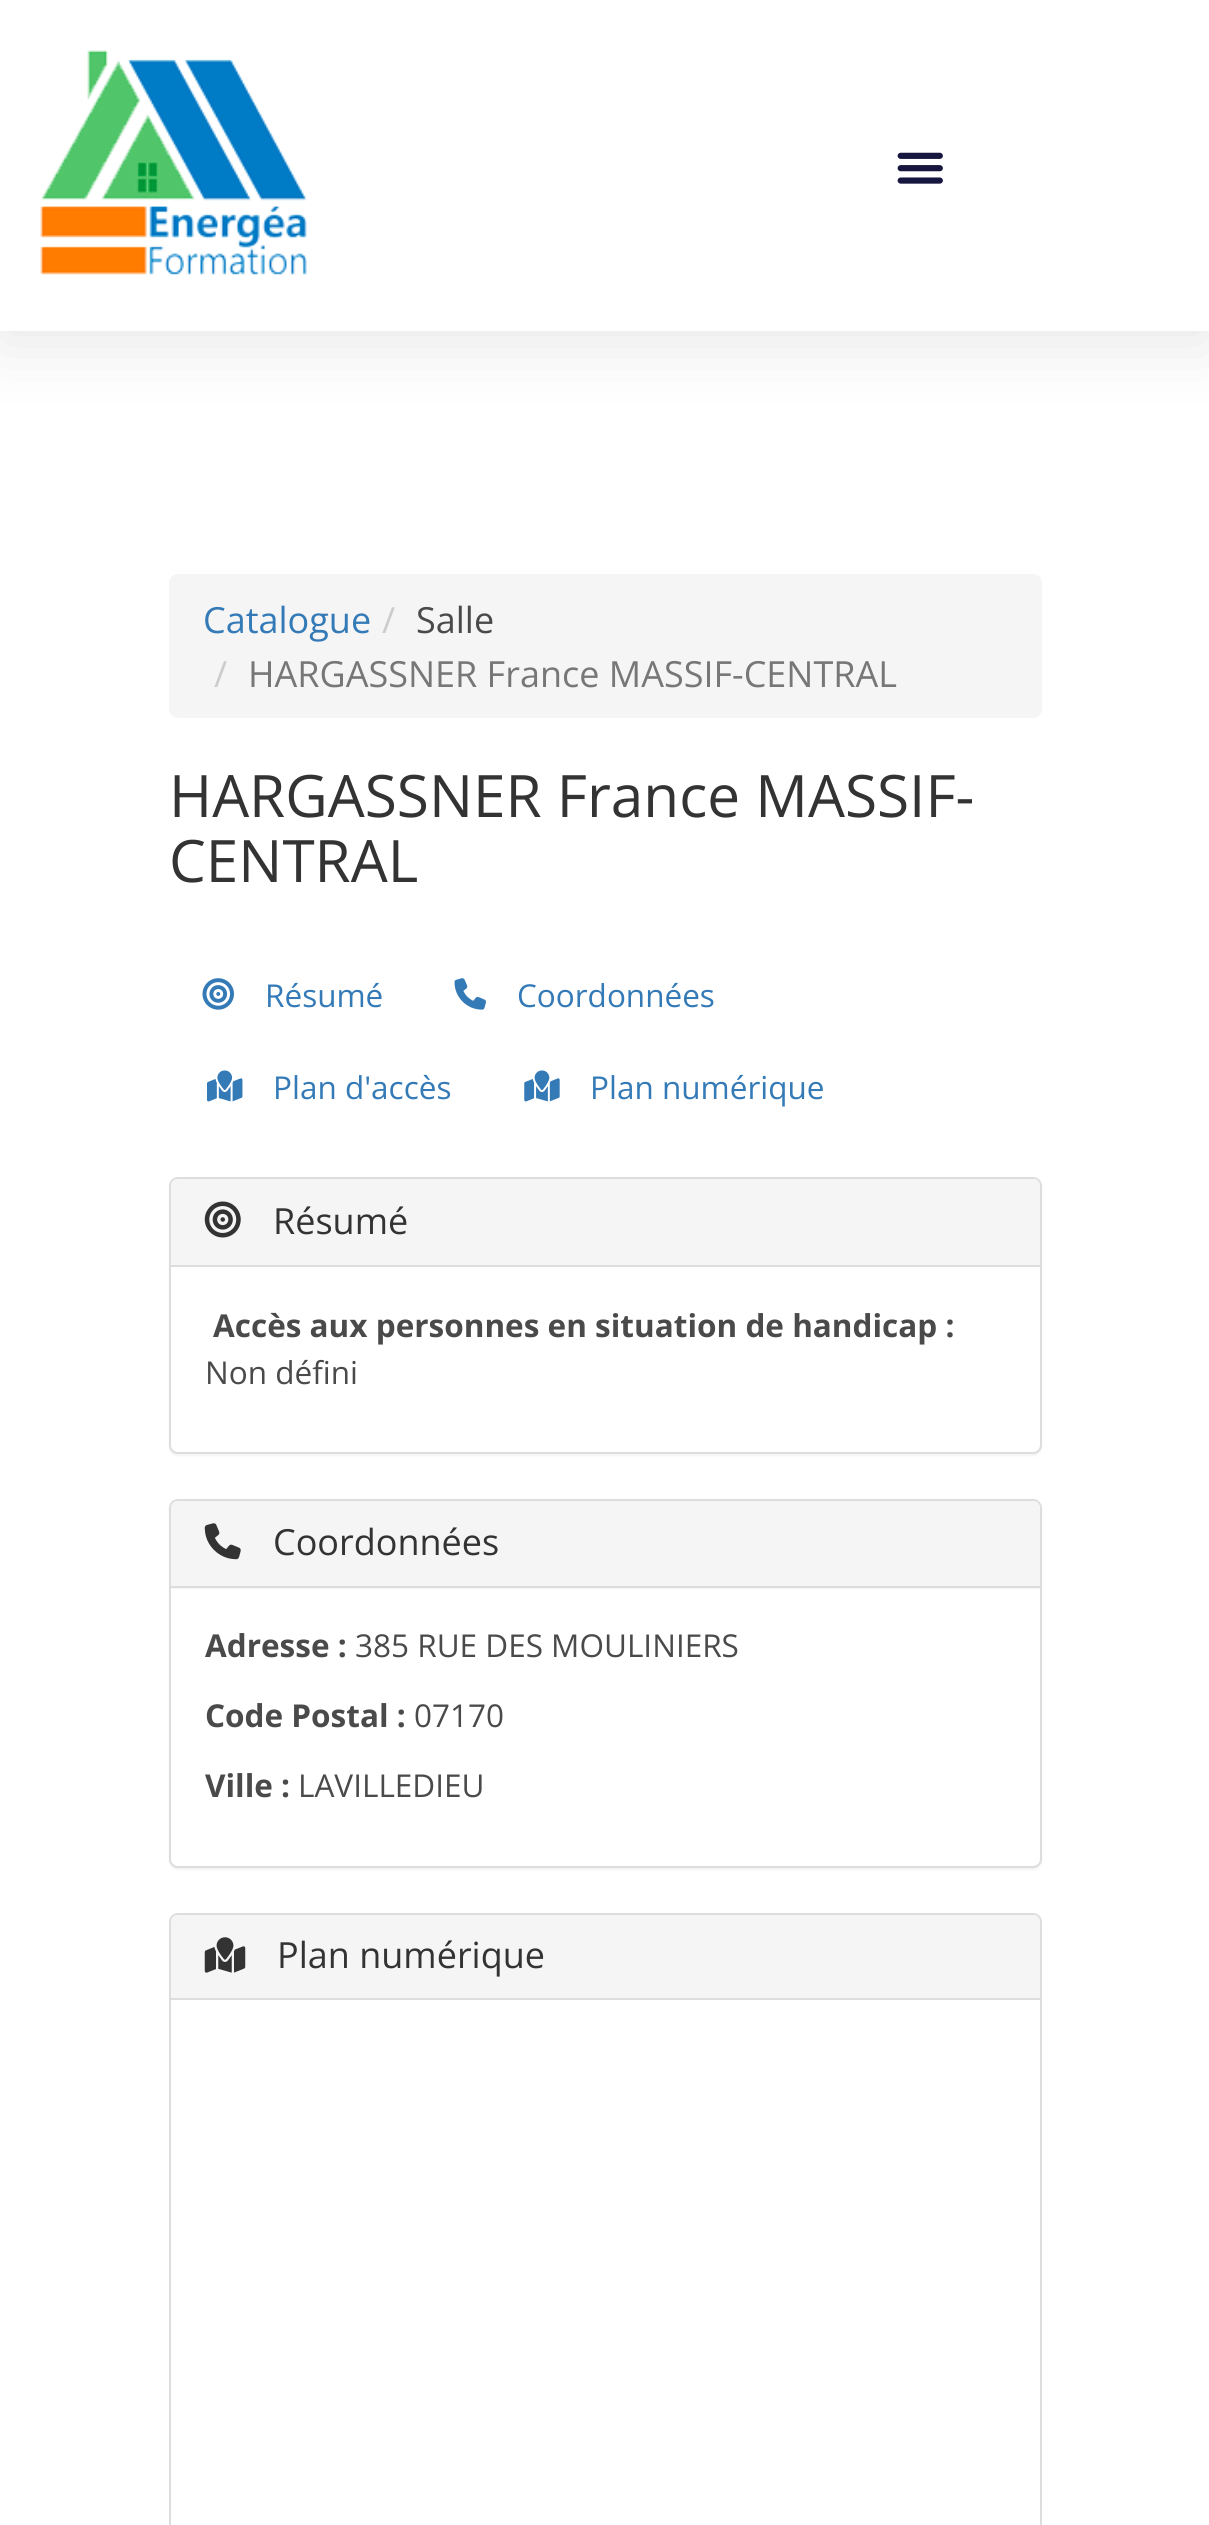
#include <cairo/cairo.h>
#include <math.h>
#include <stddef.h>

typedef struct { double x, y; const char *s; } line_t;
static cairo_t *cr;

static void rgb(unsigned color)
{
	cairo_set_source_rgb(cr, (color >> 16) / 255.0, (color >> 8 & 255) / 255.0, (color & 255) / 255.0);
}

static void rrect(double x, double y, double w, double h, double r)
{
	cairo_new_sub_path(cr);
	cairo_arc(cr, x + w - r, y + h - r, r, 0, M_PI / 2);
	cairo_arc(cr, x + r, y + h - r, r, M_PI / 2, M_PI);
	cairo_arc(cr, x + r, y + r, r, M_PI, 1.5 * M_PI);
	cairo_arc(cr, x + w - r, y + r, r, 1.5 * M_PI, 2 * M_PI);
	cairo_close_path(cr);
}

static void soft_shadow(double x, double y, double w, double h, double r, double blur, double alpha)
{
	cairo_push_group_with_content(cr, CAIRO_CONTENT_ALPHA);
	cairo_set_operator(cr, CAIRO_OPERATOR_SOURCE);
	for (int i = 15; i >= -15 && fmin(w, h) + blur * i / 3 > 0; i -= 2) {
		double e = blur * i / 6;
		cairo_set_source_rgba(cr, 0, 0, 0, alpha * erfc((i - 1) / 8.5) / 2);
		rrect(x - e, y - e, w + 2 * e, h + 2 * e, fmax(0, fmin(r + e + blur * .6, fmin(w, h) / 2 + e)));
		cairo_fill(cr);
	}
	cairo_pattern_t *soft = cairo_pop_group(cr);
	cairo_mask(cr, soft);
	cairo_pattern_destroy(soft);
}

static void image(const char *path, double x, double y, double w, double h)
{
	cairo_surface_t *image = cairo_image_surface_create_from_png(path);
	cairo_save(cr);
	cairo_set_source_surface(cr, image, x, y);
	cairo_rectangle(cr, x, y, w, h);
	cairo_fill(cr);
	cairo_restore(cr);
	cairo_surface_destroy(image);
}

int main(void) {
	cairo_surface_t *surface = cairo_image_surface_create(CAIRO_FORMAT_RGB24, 1209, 2525);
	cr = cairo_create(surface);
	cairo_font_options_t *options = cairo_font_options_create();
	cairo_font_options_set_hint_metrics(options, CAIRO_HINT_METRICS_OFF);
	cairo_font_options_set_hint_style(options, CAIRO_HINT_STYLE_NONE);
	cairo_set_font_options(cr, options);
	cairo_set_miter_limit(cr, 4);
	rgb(0xffffff);
	cairo_paint(cr);
	rgb(0x000000);
	soft_shadow(0, 11, 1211, 331, 0, 34, 0.1);
	rgb(0xffffff);
	cairo_rectangle(cr, 0, 0, 1209, 331);
	cairo_fill(cr);
	image("img/1.png", 40, 50, 267, 225);
	image("img/2.png", 897, 152, 46, 32);
	rgb(0xf5f5f5);
	rrect(169, 574, 873, 144, 9);
	cairo_fill(cr);
	image("img/3.png", 202, 978, 32, 32);
	image("img/4.png", 454, 978, 32, 32);
	image("img/5.png", 207, 1070, 36, 32);
	image("img/6.png", 524, 1070, 36, 32);
	rgb(0x000000);
	soft_shadow(169, 1179, 873, 277, 9, 1, 0.05);
	rgb(0xffffff);
	rrect(170, 1178, 871, 275, 8);
	cairo_fill_preserve(cr);
	rgb(0xdddddd);
	cairo_stroke(cr);
	rgb(0xf5f5f5);
	cairo_new_path(cr);
	cairo_move_to(cr, 178, 1179);
	cairo_line_to(cr, 1033, 1179);
	cairo_curve_to(cr, 1037, 1179, 1040, 1182, 1040, 1186);
	cairo_line_to(cr, 1040, 1267);
	cairo_line_to(cr, 171, 1267);
	cairo_line_to(cr, 171, 1186);
	cairo_curve_to(cr, 171, 1182, 174, 1179, 178, 1179);
	cairo_close_path(cr);
	cairo_fill(cr);
	rgb(0xdddddd);
	cairo_rectangle(cr, 171, 1265, 869, 2);
	cairo_fill(cr);
	image("img/7.png", 204, 1201, 37, 37);
	rgb(0x000000);
	soft_shadow(169, 1501, 873, 369, 9, 1, 0.05);
	rgb(0xffffff);
	rrect(170, 1500, 871, 367, 8);
	cairo_fill_preserve(cr);
	rgb(0xdddddd);
	cairo_stroke(cr);
	rgb(0xf5f5f5);
	cairo_new_path(cr);
	cairo_move_to(cr, 178, 1501);
	cairo_line_to(cr, 1033, 1501);
	cairo_curve_to(cr, 1037, 1501, 1040, 1504, 1040, 1508);
	cairo_line_to(cr, 1040, 1589);
	cairo_line_to(cr, 171, 1589);
	cairo_line_to(cr, 171, 1508);
	cairo_curve_to(cr, 171, 1504, 174, 1501, 178, 1501);
	cairo_close_path(cr);
	cairo_fill(cr);
	rgb(0xdddddd);
	cairo_rectangle(cr, 171, 1586, 869, 2);
	cairo_fill(cr);
	image("img/8.png", 204, 1523, 37, 37);
	rrect(170, 1914, 871, 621, 8);
	cairo_stroke(cr);
	rgb(0xf5f5f5);
	cairo_new_path(cr);
	cairo_move_to(cr, 178, 1915);
	cairo_line_to(cr, 1033, 1915);
	cairo_curve_to(cr, 1037, 1915, 1040, 1918, 1040, 1922);
	cairo_line_to(cr, 1040, 2000);
	cairo_line_to(cr, 171, 2000);
	cairo_line_to(cr, 171, 1922);
	cairo_curve_to(cr, 171, 1918, 174, 1915, 178, 1915);
	cairo_close_path(cr);
	cairo_fill(cr);
	rgb(0xdddddd);
	cairo_rectangle(cr, 171, 1998, 869, 2);
	cairo_fill(cr);
	image("img/9.png", 204, 1937, 42, 36);
	cairo_select_font_face(cr, "Open Sans", CAIRO_FONT_SLANT_NORMAL, CAIRO_FONT_WEIGHT_NORMAL);
	cairo_set_font_size(cr, 36);
	rgb(0x337ab7);
	cairo_move_to(cr, 203, 633);
	cairo_show_text(cr, "Catalogue");
	rgb(0xcccccc);
	cairo_move_to(cr, 382, 633);
	cairo_show_text(cr, "/");
	rgb(0x4a4a4a);
	cairo_move_to(cr, 416, 633);
	cairo_show_text(cr, "Salle");
	rgb(0xcccccc);
	cairo_move_to(cr, 214, 687);
	cairo_show_text(cr, "/");
	rgb(0x777777);
	cairo_move_to(cr, 248, 687);
	cairo_show_text(cr, "HARGASSNER France MASSIF-CENTRAL");
	cairo_set_font_size(cr, 58.5);
	rgb(0x333333);
	cairo_move_to(cr, 169, 817);
	cairo_show_text(cr, "HARGASSNER France MASSIF-");
	cairo_move_to(cr, 169, 882);
	cairo_show_text(cr, "CENTRAL");
	cairo_set_font_size(cr, 31.5);
	rgb(0x337ab7);
	{
		static const line_t items[] = {
			{265, 1007, "Résumé"},
			{517, 1007, "Coordonnées"},
			{273, 1099, "Plan d'accès"},
			{590, 1099, "Plan numérique"},
		};
		for (size_t i = 0; i < sizeof items / sizeof *items; i++) {
			cairo_move_to(cr, items[i].x, items[i].y);
			cairo_show_text(cr, items[i].s);
		}
	}
	cairo_set_font_size(cr, 36);
	rgb(0x333333);
	cairo_move_to(cr, 273, 1234);
	cairo_show_text(cr, "Résumé");
	cairo_select_font_face(cr, "Open Sans", CAIRO_FONT_SLANT_NORMAL, CAIRO_FONT_WEIGHT_BOLD);
	cairo_set_font_size(cr, 31.5);
	rgb(0x4a4a4a);
	cairo_move_to(cr, 213, 1337);
	cairo_show_text(cr, "Accès aux personnes en situation de handicap :");
	cairo_select_font_face(cr, "Open Sans", CAIRO_FONT_SLANT_NORMAL, CAIRO_FONT_WEIGHT_NORMAL);
	cairo_move_to(cr, 205, 1384);
	cairo_show_text(cr, "Non défini");
	cairo_set_font_size(cr, 36);
	rgb(0x333333);
	cairo_move_to(cr, 273, 1555);
	cairo_show_text(cr, "Coordonnées");
	cairo_select_font_face(cr, "Open Sans", CAIRO_FONT_SLANT_NORMAL, CAIRO_FONT_WEIGHT_BOLD);
	cairo_set_font_size(cr, 31.5);
	rgb(0x4a4a4a);
	cairo_move_to(cr, 205, 1657);
	cairo_show_text(cr, "Adresse :");
	cairo_select_font_face(cr, "Open Sans", CAIRO_FONT_SLANT_NORMAL, CAIRO_FONT_WEIGHT_NORMAL);
	cairo_move_to(cr, 355, 1657);
	cairo_show_text(cr, "385 RUE DES MOULINIERS");
	cairo_select_font_face(cr, "Open Sans", CAIRO_FONT_SLANT_NORMAL, CAIRO_FONT_WEIGHT_BOLD);
	cairo_move_to(cr, 205, 1727);
	cairo_show_text(cr, "Code Postal :");
	cairo_select_font_face(cr, "Open Sans", CAIRO_FONT_SLANT_NORMAL, CAIRO_FONT_WEIGHT_NORMAL);
	cairo_move_to(cr, 414, 1727);
	cairo_show_text(cr, "07170");
	cairo_select_font_face(cr, "Open Sans", CAIRO_FONT_SLANT_NORMAL, CAIRO_FONT_WEIGHT_BOLD);
	cairo_move_to(cr, 205, 1797);
	cairo_show_text(cr, "Ville :");
	cairo_select_font_face(cr, "Open Sans", CAIRO_FONT_SLANT_NORMAL, CAIRO_FONT_WEIGHT_NORMAL);
	cairo_move_to(cr, 298, 1797);
	cairo_show_text(cr, "LAVILLEDIEU");
	cairo_set_font_size(cr, 36);
	rgb(0x333333);
	cairo_move_to(cr, 277, 1968);
	cairo_show_text(cr, "Plan numérique");
	cairo_surface_write_to_png(surface, "page.png");
	cairo_font_options_destroy(options);
	cairo_destroy(cr);
	cairo_surface_destroy(surface);
	return 0;
}
